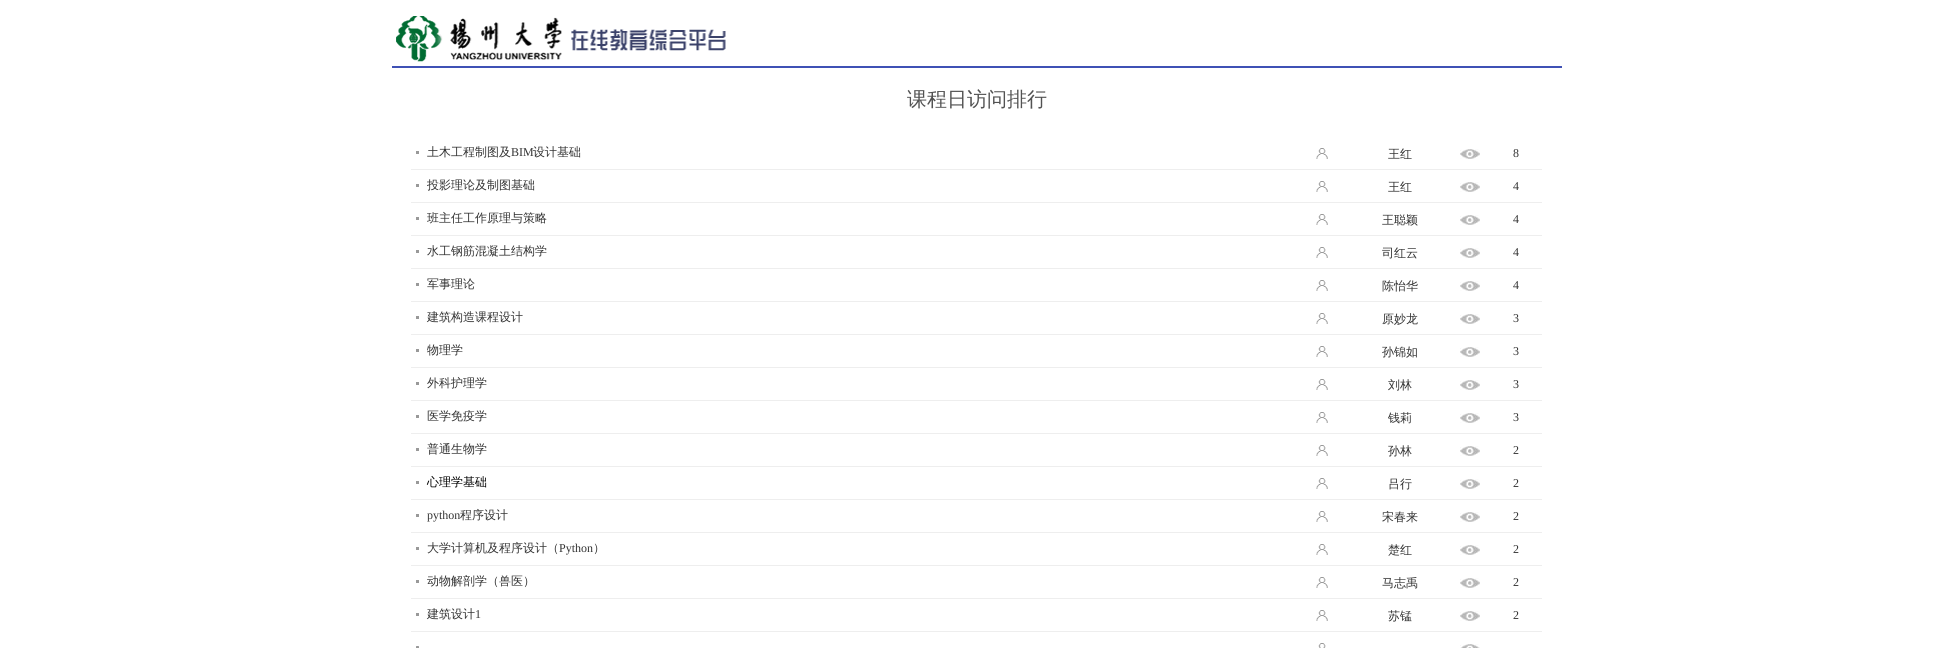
#include <cairo/cairo.h>
#include <math.h>
#include <stddef.h>

static cairo_t *cr;

static void rgb(unsigned color)
{
	cairo_set_source_rgb(cr, (color >> 16) / 255.0, (color >> 8 & 255) / 255.0, (color & 255) / 255.0);
}

static void image(const char *path, double x, double y, double w, double h)
{
	cairo_surface_t *image = cairo_image_surface_create_from_png(path);
	cairo_save(cr);
	cairo_set_source_surface(cr, image, x, y);
	cairo_rectangle(cr, x, y, w, h);
	cairo_fill(cr);
	cairo_restore(cr);
	cairo_surface_destroy(image);
}

int main(void) {
	cairo_surface_t *surface = cairo_image_surface_create(CAIRO_FORMAT_RGB24, 1953, 648);
	cr = cairo_create(surface);
	cairo_font_options_t *options = cairo_font_options_create();
	cairo_font_options_set_hint_metrics(options, CAIRO_HINT_METRICS_OFF);
	cairo_font_options_set_hint_style(options, CAIRO_HINT_STYLE_NONE);
	cairo_set_font_options(cr, options);
	cairo_set_miter_limit(cr, 4);
	rgb(0xffffff);
	cairo_paint(cr);
	rgb(0x3f51b5);
	cairo_rectangle(cr, 392, 66, 1170, 2);
	cairo_fill(cr);
	image("img/1.png", 396, 16, 330, 46);
	rgb(0x999999);
	cairo_rectangle(cr, 416, 151, 3, 3);
	cairo_fill(cr);
	image("img/2.png", 1316, 148, 12, 11);
	rgb(0xeeeeee);
	cairo_rectangle(cr, 411, 169, 1131, 1);
	cairo_fill(cr);
	image("img/3.png", 1460, 149, 20, 10);
	rgb(0x999999);
	cairo_rectangle(cr, 416, 184, 3, 3);
	cairo_fill(cr);
	image("img/2.png", 1316, 181, 12, 11);
	rgb(0xeeeeee);
	cairo_rectangle(cr, 411, 202, 1131, 1);
	cairo_fill(cr);
	image("img/3.png", 1460, 182, 20, 10);
	rgb(0x999999);
	cairo_rectangle(cr, 416, 217, 3, 3);
	cairo_fill(cr);
	image("img/2.png", 1316, 214, 12, 11);
	rgb(0xeeeeee);
	cairo_rectangle(cr, 411, 235, 1131, 1);
	cairo_fill(cr);
	image("img/3.png", 1460, 215, 20, 10);
	rgb(0x999999);
	cairo_rectangle(cr, 416, 250, 3, 3);
	cairo_fill(cr);
	image("img/2.png", 1316, 247, 12, 11);
	rgb(0xeeeeee);
	cairo_rectangle(cr, 411, 268, 1131, 1);
	cairo_fill(cr);
	image("img/3.png", 1460, 248, 20, 10);
	rgb(0x999999);
	cairo_rectangle(cr, 416, 283, 3, 3);
	cairo_fill(cr);
	image("img/2.png", 1316, 280, 12, 11);
	rgb(0xeeeeee);
	cairo_rectangle(cr, 411, 301, 1131, 1);
	cairo_fill(cr);
	image("img/3.png", 1460, 281, 20, 10);
	rgb(0x999999);
	cairo_rectangle(cr, 416, 316, 3, 3);
	cairo_fill(cr);
	image("img/2.png", 1316, 313, 12, 11);
	rgb(0xeeeeee);
	cairo_rectangle(cr, 411, 334, 1131, 1);
	cairo_fill(cr);
	image("img/3.png", 1460, 314, 20, 10);
	rgb(0x999999);
	cairo_rectangle(cr, 416, 349, 3, 3);
	cairo_fill(cr);
	image("img/2.png", 1316, 346, 12, 11);
	rgb(0xeeeeee);
	cairo_rectangle(cr, 411, 367, 1131, 1);
	cairo_fill(cr);
	image("img/3.png", 1460, 347, 20, 10);
	rgb(0x999999);
	cairo_rectangle(cr, 416, 382, 3, 3);
	cairo_fill(cr);
	image("img/2.png", 1316, 379, 12, 11);
	rgb(0xeeeeee);
	cairo_rectangle(cr, 411, 400, 1131, 1);
	cairo_fill(cr);
	image("img/3.png", 1460, 380, 20, 10);
	rgb(0x999999);
	cairo_rectangle(cr, 416, 415, 3, 3);
	cairo_fill(cr);
	image("img/2.png", 1316, 412, 12, 11);
	rgb(0xeeeeee);
	cairo_rectangle(cr, 411, 433, 1131, 1);
	cairo_fill(cr);
	image("img/3.png", 1460, 413, 20, 10);
	rgb(0x999999);
	cairo_rectangle(cr, 416, 448, 3, 3);
	cairo_fill(cr);
	image("img/2.png", 1316, 445, 12, 11);
	rgb(0xeeeeee);
	cairo_rectangle(cr, 411, 466, 1131, 1);
	cairo_fill(cr);
	image("img/3.png", 1460, 446, 20, 10);
	rgb(0x999999);
	cairo_rectangle(cr, 416, 481, 3, 3);
	cairo_fill(cr);
	image("img/2.png", 1316, 478, 12, 11);
	rgb(0xeeeeee);
	cairo_rectangle(cr, 411, 499, 1131, 1);
	cairo_fill(cr);
	image("img/3.png", 1460, 479, 20, 10);
	rgb(0x999999);
	cairo_rectangle(cr, 416, 514, 3, 3);
	cairo_fill(cr);
	image("img/2.png", 1316, 511, 12, 11);
	rgb(0xeeeeee);
	cairo_rectangle(cr, 411, 532, 1131, 1);
	cairo_fill(cr);
	image("img/3.png", 1460, 512, 20, 10);
	rgb(0x999999);
	cairo_rectangle(cr, 416, 547, 3, 3);
	cairo_fill(cr);
	image("img/2.png", 1316, 544, 12, 11);
	rgb(0xeeeeee);
	cairo_rectangle(cr, 411, 565, 1131, 1);
	cairo_fill(cr);
	image("img/3.png", 1460, 545, 20, 10);
	rgb(0x999999);
	cairo_rectangle(cr, 416, 580, 3, 3);
	cairo_fill(cr);
	image("img/2.png", 1316, 577, 12, 11);
	rgb(0xeeeeee);
	cairo_rectangle(cr, 411, 598, 1131, 1);
	cairo_fill(cr);
	image("img/3.png", 1460, 578, 20, 10);
	rgb(0x999999);
	cairo_rectangle(cr, 416, 613, 3, 3);
	cairo_fill(cr);
	image("img/2.png", 1316, 610, 12, 11);
	rgb(0xeeeeee);
	cairo_rectangle(cr, 411, 631, 1131, 1);
	cairo_fill(cr);
	image("img/3.png", 1460, 611, 20, 10);
	image("img/4.png", 416, 646, 3, 2);
	image("img/5.png", 1318, 643, 8, 5);
	image("img/6.png", 1460, 644, 20, 4);
	cairo_select_font_face(cr, "WenQuanYi Zen Hei Medium", CAIRO_FONT_SLANT_NORMAL, CAIRO_FONT_WEIGHT_NORMAL);
	cairo_set_font_size(cr, 20);
	rgb(0x525252);
	cairo_move_to(cr, 907, 106);
	cairo_show_text(cr, "课程日访问排行");
	cairo_set_font_size(cr, 12);
	rgb(0x333333);
	cairo_move_to(cr, 427, 156);
	cairo_show_text(cr, "土木工程制图及");
	cairo_select_font_face(cr, "Liberation Serif", CAIRO_FONT_SLANT_NORMAL, CAIRO_FONT_WEIGHT_NORMAL);
	cairo_move_to(cr, 511, 156);
	cairo_show_text(cr, "BIM");
	cairo_select_font_face(cr, "WenQuanYi Zen Hei Medium", CAIRO_FONT_SLANT_NORMAL, CAIRO_FONT_WEIGHT_NORMAL);
	cairo_move_to(cr, 533, 156);
	cairo_show_text(cr, "设计基础");
	cairo_move_to(cr, 1388, 158);
	cairo_show_text(cr, "王红");
	cairo_select_font_face(cr, "Liberation Serif", CAIRO_FONT_SLANT_NORMAL, CAIRO_FONT_WEIGHT_NORMAL);
	cairo_move_to(cr, 1513, 157);
	cairo_show_text(cr, "8");
	cairo_select_font_face(cr, "WenQuanYi Zen Hei Medium", CAIRO_FONT_SLANT_NORMAL, CAIRO_FONT_WEIGHT_NORMAL);
	cairo_move_to(cr, 427, 189);
	cairo_show_text(cr, "投影理论及制图基础");
	cairo_move_to(cr, 1388, 191);
	cairo_show_text(cr, "王红");
	cairo_select_font_face(cr, "Liberation Serif", CAIRO_FONT_SLANT_NORMAL, CAIRO_FONT_WEIGHT_NORMAL);
	cairo_move_to(cr, 1513, 190);
	cairo_show_text(cr, "4");
	cairo_select_font_face(cr, "WenQuanYi Zen Hei Medium", CAIRO_FONT_SLANT_NORMAL, CAIRO_FONT_WEIGHT_NORMAL);
	cairo_move_to(cr, 427, 222);
	cairo_show_text(cr, "班主任工作原理与策略");
	cairo_move_to(cr, 1382, 224);
	cairo_show_text(cr, "王聪颖");
	cairo_select_font_face(cr, "Liberation Serif", CAIRO_FONT_SLANT_NORMAL, CAIRO_FONT_WEIGHT_NORMAL);
	cairo_move_to(cr, 1513, 223);
	cairo_show_text(cr, "4");
	cairo_select_font_face(cr, "WenQuanYi Zen Hei Medium", CAIRO_FONT_SLANT_NORMAL, CAIRO_FONT_WEIGHT_NORMAL);
	cairo_move_to(cr, 427, 255);
	cairo_show_text(cr, "水工钢筋混凝土结构学");
	cairo_move_to(cr, 1382, 257);
	cairo_show_text(cr, "司红云");
	cairo_select_font_face(cr, "Liberation Serif", CAIRO_FONT_SLANT_NORMAL, CAIRO_FONT_WEIGHT_NORMAL);
	cairo_move_to(cr, 1513, 256);
	cairo_show_text(cr, "4");
	cairo_select_font_face(cr, "WenQuanYi Zen Hei Medium", CAIRO_FONT_SLANT_NORMAL, CAIRO_FONT_WEIGHT_NORMAL);
	cairo_move_to(cr, 427, 288);
	cairo_show_text(cr, "军事理论");
	cairo_move_to(cr, 1382, 290);
	cairo_show_text(cr, "陈怡华");
	cairo_select_font_face(cr, "Liberation Serif", CAIRO_FONT_SLANT_NORMAL, CAIRO_FONT_WEIGHT_NORMAL);
	cairo_move_to(cr, 1513, 289);
	cairo_show_text(cr, "4");
	cairo_select_font_face(cr, "WenQuanYi Zen Hei Medium", CAIRO_FONT_SLANT_NORMAL, CAIRO_FONT_WEIGHT_NORMAL);
	cairo_move_to(cr, 427, 321);
	cairo_show_text(cr, "建筑构造课程设计");
	cairo_move_to(cr, 1382, 323);
	cairo_show_text(cr, "原妙龙");
	cairo_select_font_face(cr, "Liberation Serif", CAIRO_FONT_SLANT_NORMAL, CAIRO_FONT_WEIGHT_NORMAL);
	cairo_move_to(cr, 1513, 322);
	cairo_show_text(cr, "3");
	cairo_select_font_face(cr, "WenQuanYi Zen Hei Medium", CAIRO_FONT_SLANT_NORMAL, CAIRO_FONT_WEIGHT_NORMAL);
	cairo_move_to(cr, 427, 354);
	cairo_show_text(cr, "物理学");
	cairo_move_to(cr, 1382, 356);
	cairo_show_text(cr, "孙锦如");
	cairo_select_font_face(cr, "Liberation Serif", CAIRO_FONT_SLANT_NORMAL, CAIRO_FONT_WEIGHT_NORMAL);
	cairo_move_to(cr, 1513, 355);
	cairo_show_text(cr, "3");
	cairo_select_font_face(cr, "WenQuanYi Zen Hei Medium", CAIRO_FONT_SLANT_NORMAL, CAIRO_FONT_WEIGHT_NORMAL);
	cairo_move_to(cr, 427, 387);
	cairo_show_text(cr, "外科护理学");
	cairo_move_to(cr, 1388, 389);
	cairo_show_text(cr, "刘林");
	cairo_select_font_face(cr, "Liberation Serif", CAIRO_FONT_SLANT_NORMAL, CAIRO_FONT_WEIGHT_NORMAL);
	cairo_move_to(cr, 1513, 388);
	cairo_show_text(cr, "3");
	cairo_select_font_face(cr, "WenQuanYi Zen Hei Medium", CAIRO_FONT_SLANT_NORMAL, CAIRO_FONT_WEIGHT_NORMAL);
	cairo_move_to(cr, 427, 420);
	cairo_show_text(cr, "医学免疫学");
	cairo_move_to(cr, 1388, 422);
	cairo_show_text(cr, "钱莉");
	cairo_select_font_face(cr, "Liberation Serif", CAIRO_FONT_SLANT_NORMAL, CAIRO_FONT_WEIGHT_NORMAL);
	cairo_move_to(cr, 1513, 421);
	cairo_show_text(cr, "3");
	cairo_select_font_face(cr, "WenQuanYi Zen Hei Medium", CAIRO_FONT_SLANT_NORMAL, CAIRO_FONT_WEIGHT_NORMAL);
	cairo_move_to(cr, 427, 453);
	cairo_show_text(cr, "普通生物学");
	cairo_move_to(cr, 1388, 455);
	cairo_show_text(cr, "孙林");
	cairo_select_font_face(cr, "Liberation Serif", CAIRO_FONT_SLANT_NORMAL, CAIRO_FONT_WEIGHT_NORMAL);
	cairo_move_to(cr, 1513, 454);
	cairo_show_text(cr, "2");
	cairo_select_font_face(cr, "WenQuanYi Zen Hei Medium", CAIRO_FONT_SLANT_NORMAL, CAIRO_FONT_WEIGHT_NORMAL);
	rgb(0x000000);
	cairo_move_to(cr, 427, 486);
	cairo_show_text(cr, "心理学基础");
	rgb(0x333333);
	cairo_move_to(cr, 1388, 488);
	cairo_show_text(cr, "吕行");
	cairo_select_font_face(cr, "Liberation Serif", CAIRO_FONT_SLANT_NORMAL, CAIRO_FONT_WEIGHT_NORMAL);
	cairo_move_to(cr, 1513, 487);
	cairo_show_text(cr, "2");
	cairo_move_to(cr, 427, 519);
	cairo_show_text(cr, "python");
	cairo_select_font_face(cr, "WenQuanYi Zen Hei Medium", CAIRO_FONT_SLANT_NORMAL, CAIRO_FONT_WEIGHT_NORMAL);
	cairo_move_to(cr, 460, 519);
	cairo_show_text(cr, "程序设计");
	cairo_move_to(cr, 1382, 521);
	cairo_show_text(cr, "宋春来");
	cairo_select_font_face(cr, "Liberation Serif", CAIRO_FONT_SLANT_NORMAL, CAIRO_FONT_WEIGHT_NORMAL);
	cairo_move_to(cr, 1513, 520);
	cairo_show_text(cr, "2");
	cairo_select_font_face(cr, "WenQuanYi Zen Hei Medium", CAIRO_FONT_SLANT_NORMAL, CAIRO_FONT_WEIGHT_NORMAL);
	cairo_move_to(cr, 427, 552);
	cairo_show_text(cr, "大学计算机及程序设计（");
	cairo_select_font_face(cr, "Liberation Serif", CAIRO_FONT_SLANT_NORMAL, CAIRO_FONT_WEIGHT_NORMAL);
	cairo_move_to(cr, 559, 552);
	cairo_show_text(cr, "Python");
	cairo_select_font_face(cr, "WenQuanYi Zen Hei Medium", CAIRO_FONT_SLANT_NORMAL, CAIRO_FONT_WEIGHT_NORMAL);
	cairo_move_to(cr, 593, 552);
	cairo_show_text(cr, "）");
	cairo_move_to(cr, 1388, 554);
	cairo_show_text(cr, "楚红");
	cairo_select_font_face(cr, "Liberation Serif", CAIRO_FONT_SLANT_NORMAL, CAIRO_FONT_WEIGHT_NORMAL);
	cairo_move_to(cr, 1513, 553);
	cairo_show_text(cr, "2");
	cairo_select_font_face(cr, "WenQuanYi Zen Hei Medium", CAIRO_FONT_SLANT_NORMAL, CAIRO_FONT_WEIGHT_NORMAL);
	cairo_move_to(cr, 427, 585);
	cairo_show_text(cr, "动物解剖学（兽医）");
	cairo_move_to(cr, 1382, 587);
	cairo_show_text(cr, "马志禹");
	cairo_select_font_face(cr, "Liberation Serif", CAIRO_FONT_SLANT_NORMAL, CAIRO_FONT_WEIGHT_NORMAL);
	cairo_move_to(cr, 1513, 586);
	cairo_show_text(cr, "2");
	cairo_select_font_face(cr, "WenQuanYi Zen Hei Medium", CAIRO_FONT_SLANT_NORMAL, CAIRO_FONT_WEIGHT_NORMAL);
	cairo_move_to(cr, 427, 618);
	cairo_show_text(cr, "建筑设计");
	cairo_select_font_face(cr, "Liberation Serif", CAIRO_FONT_SLANT_NORMAL, CAIRO_FONT_WEIGHT_NORMAL);
	cairo_move_to(cr, 475, 618);
	cairo_show_text(cr, "1");
	cairo_select_font_face(cr, "WenQuanYi Zen Hei Medium", CAIRO_FONT_SLANT_NORMAL, CAIRO_FONT_WEIGHT_NORMAL);
	cairo_move_to(cr, 1388, 620);
	cairo_show_text(cr, "苏锰");
	cairo_select_font_face(cr, "Liberation Serif", CAIRO_FONT_SLANT_NORMAL, CAIRO_FONT_WEIGHT_NORMAL);
	cairo_move_to(cr, 1513, 619);
	cairo_show_text(cr, "2");
	cairo_surface_write_to_png(surface, "page.png");
	cairo_font_options_destroy(options);
	cairo_destroy(cr);
	cairo_surface_destroy(surface);
	return 0;
}
